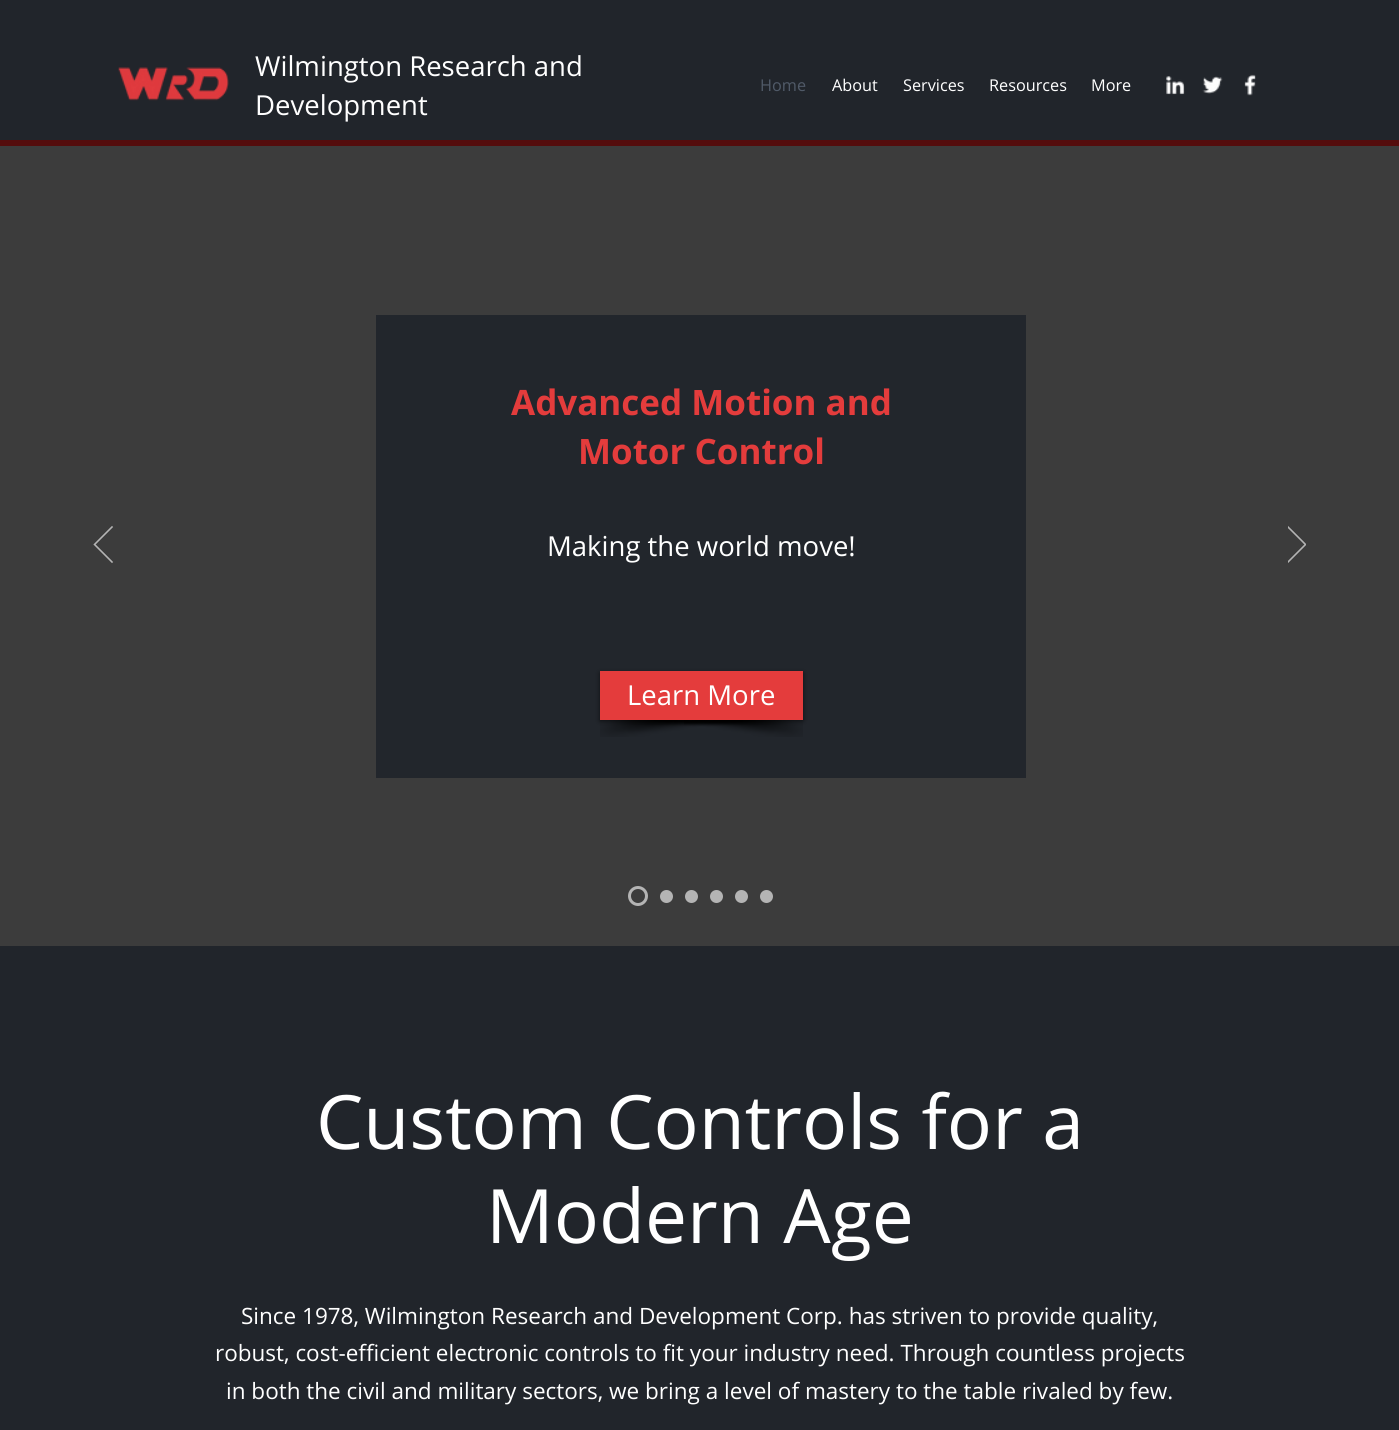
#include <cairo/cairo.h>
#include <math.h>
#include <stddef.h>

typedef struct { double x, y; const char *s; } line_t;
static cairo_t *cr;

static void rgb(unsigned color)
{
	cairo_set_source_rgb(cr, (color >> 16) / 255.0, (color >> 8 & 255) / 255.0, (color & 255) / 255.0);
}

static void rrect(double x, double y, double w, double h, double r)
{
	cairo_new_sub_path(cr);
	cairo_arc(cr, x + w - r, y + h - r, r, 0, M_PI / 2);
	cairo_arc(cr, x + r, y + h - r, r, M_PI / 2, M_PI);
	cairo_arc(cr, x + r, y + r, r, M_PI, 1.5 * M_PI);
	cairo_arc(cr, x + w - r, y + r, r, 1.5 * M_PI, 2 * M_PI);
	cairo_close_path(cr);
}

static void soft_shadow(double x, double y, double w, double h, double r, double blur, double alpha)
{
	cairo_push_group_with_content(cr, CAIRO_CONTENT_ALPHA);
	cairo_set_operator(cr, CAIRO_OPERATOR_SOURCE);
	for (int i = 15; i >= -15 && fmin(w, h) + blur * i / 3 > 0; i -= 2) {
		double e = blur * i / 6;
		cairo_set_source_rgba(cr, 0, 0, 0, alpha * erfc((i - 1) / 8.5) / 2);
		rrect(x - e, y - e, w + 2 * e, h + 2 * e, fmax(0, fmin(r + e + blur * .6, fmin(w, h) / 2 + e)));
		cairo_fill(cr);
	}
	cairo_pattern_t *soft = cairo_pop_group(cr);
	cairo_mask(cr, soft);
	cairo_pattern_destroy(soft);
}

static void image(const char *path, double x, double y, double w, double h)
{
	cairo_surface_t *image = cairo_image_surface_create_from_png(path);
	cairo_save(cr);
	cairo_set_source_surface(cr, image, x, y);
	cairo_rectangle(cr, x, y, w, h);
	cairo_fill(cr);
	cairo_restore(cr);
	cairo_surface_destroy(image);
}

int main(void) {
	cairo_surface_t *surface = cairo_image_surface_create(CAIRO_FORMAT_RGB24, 1399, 1430);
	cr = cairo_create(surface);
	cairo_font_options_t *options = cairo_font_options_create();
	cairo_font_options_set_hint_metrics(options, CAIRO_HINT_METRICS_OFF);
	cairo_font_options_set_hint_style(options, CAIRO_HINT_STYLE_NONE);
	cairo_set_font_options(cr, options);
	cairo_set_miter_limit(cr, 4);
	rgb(0x3c3c3c);
	cairo_paint(cr);
	rgb(0x21252b);
	cairo_rectangle(cr, 0, 0, 1399, 140);
	cairo_fill(cr);
	rgb(0x540c0c);
	cairo_rectangle(cr, 0, 140, 1399, 6);
	cairo_fill(cr);
	image("img/1.png", 118, 67, 111, 34);
	image("img/2.png", 1166, 76, 19, 19);
	image("img/3.png", 1202, 76, 21, 18);
	image("img/4.png", 1244, 74, 12, 22);
	cairo_new_path(cr);
	cairo_move_to(cr, 112, 562.5);
	cairo_line_to(cr, 94, 544.5);
	cairo_line_to(cr, 112, 526.5);
	cairo_line_to(cr, 112.5, 527);
	cairo_line_to(cr, 95, 544.5);
	cairo_line_to(cr, 112.5, 562);
	cairo_close_path(cr);
	rgb(0xb4b4b4);
	cairo_set_line_width(cr, 0.9);
	cairo_stroke(cr);
	rgb(0x22262c);
	cairo_rectangle(cr, 376, 315, 650, 463);
	cairo_fill(cr);
	image("img/5.png", 600, 720, 156, 17);
	image("img/6.png", 684, 720, 119, 17);
	rgb(0x000000);
	soft_shadow(600, 673, 203, 48, 0, 2.5, 0.6);
	rgb(0xe43c3c);
	cairo_rectangle(cr, 600, 671, 203, 49);
	cairo_fill(cr);
	cairo_save(cr);
	cairo_rectangle(cr, 1288, 526, 18, 37);
	cairo_clip(cr);
	cairo_new_path(cr);
	cairo_move_to(cr, 1288, 562.5);
	cairo_line_to(cr, 1306, 544.5);
	cairo_line_to(cr, 1288, 526.5);
	cairo_line_to(cr, 1287.5, 527);
	cairo_line_to(cr, 1305, 544.5);
	cairo_line_to(cr, 1287.5, 562);
	cairo_close_path(cr);
	rgb(0xb4b4b4);
	cairo_stroke(cr);
	cairo_restore(cr);
	cairo_arc(cr, 638, 896, 8.5, 0, 2 * M_PI);
	rgb(0xb4b4b4);
	cairo_set_line_width(cr, 3);
	cairo_stroke(cr);
	cairo_arc(cr, 666.5, 896.5, 6.5, 0, 2 * M_PI);
	cairo_fill(cr);
	cairo_arc(cr, 691.5, 896.5, 6.5, 0, 2 * M_PI);
	cairo_fill(cr);
	cairo_arc(cr, 716.5, 896.5, 6.5, 0, 2 * M_PI);
	cairo_fill(cr);
	cairo_arc(cr, 741.5, 896.5, 6.5, 0, 2 * M_PI);
	cairo_fill(cr);
	cairo_arc(cr, 766.5, 896.5, 6.5, 0, 2 * M_PI);
	cairo_fill(cr);
	rgb(0x21252b);
	cairo_rectangle(cr, 0, 946, 1399, 484);
	cairo_fill(cr);
	cairo_select_font_face(cr, "Open Sans", CAIRO_FONT_SLANT_NORMAL, CAIRO_FONT_WEIGHT_NORMAL);
	cairo_set_font_size(cr, 27.5);
	rgb(0xffffff);
	cairo_move_to(cr, 255, 76);
	cairo_show_text(cr, "Wilmington Research and");
	cairo_move_to(cr, 255, 115);
	cairo_show_text(cr, "Development");
	cairo_set_font_size(cr, 16.25);
	rgb(0x505a68);
	cairo_move_to(cr, 760, 91);
	cairo_show_text(cr, "Home");
	rgb(0xffffff);
	{
		static const line_t items[] = {
			{832, 91, "About"},
			{903, 91, "Services"},
			{989, 91, "Resources"},
			{1091, 91, "More"},
		};
		for (size_t i = 0; i < sizeof items / sizeof *items; i++) {
			cairo_move_to(cr, items[i].x, items[i].y);
			cairo_show_text(cr, items[i].s);
		}
	}
	cairo_select_font_face(cr, "Open Sans", CAIRO_FONT_SLANT_NORMAL, CAIRO_FONT_WEIGHT_BOLD);
	cairo_set_font_size(cr, 35);
	rgb(0xe43c3c);
	cairo_move_to(cr, 511, 415);
	cairo_show_text(cr, "Advanced Motion and");
	cairo_move_to(cr, 578, 464);
	cairo_show_text(cr, "Motor Control");
	cairo_select_font_face(cr, "Open Sans", CAIRO_FONT_SLANT_NORMAL, CAIRO_FONT_WEIGHT_NORMAL);
	cairo_set_font_size(cr, 27.5);
	rgb(0xffffff);
	cairo_move_to(cr, 547, 556);
	cairo_show_text(cr, "Making the world move!");
	cairo_move_to(cr, 627, 705);
	cairo_show_text(cr, "Learn More");
	cairo_set_font_size(cr, 75);
	cairo_move_to(cr, 316, 1149);
	cairo_show_text(cr, "Custom Controls for a");
	cairo_move_to(cr, 486, 1243);
	cairo_show_text(cr, "Modern Age");
	cairo_set_font_size(cr, 22.5);
	{
		static const line_t items[] = {
			{241, 1324, "Since 1978, Wilmington Research and Development Corp. has striven to provide quality,"},
			{215, 1361, "robust, cost-efficient electronic controls to fit your industry need. Through countless projects"},
			{226, 1399, "in both the civil and military sectors, we bring a level of mastery to the table rivaled by few."},
		};
		for (size_t i = 0; i < sizeof items / sizeof *items; i++) {
			cairo_move_to(cr, items[i].x, items[i].y);
			cairo_show_text(cr, items[i].s);
		}
	}
	cairo_surface_write_to_png(surface, "page.png");
	cairo_font_options_destroy(options);
	cairo_destroy(cr);
	cairo_surface_destroy(surface);
	return 0;
}
